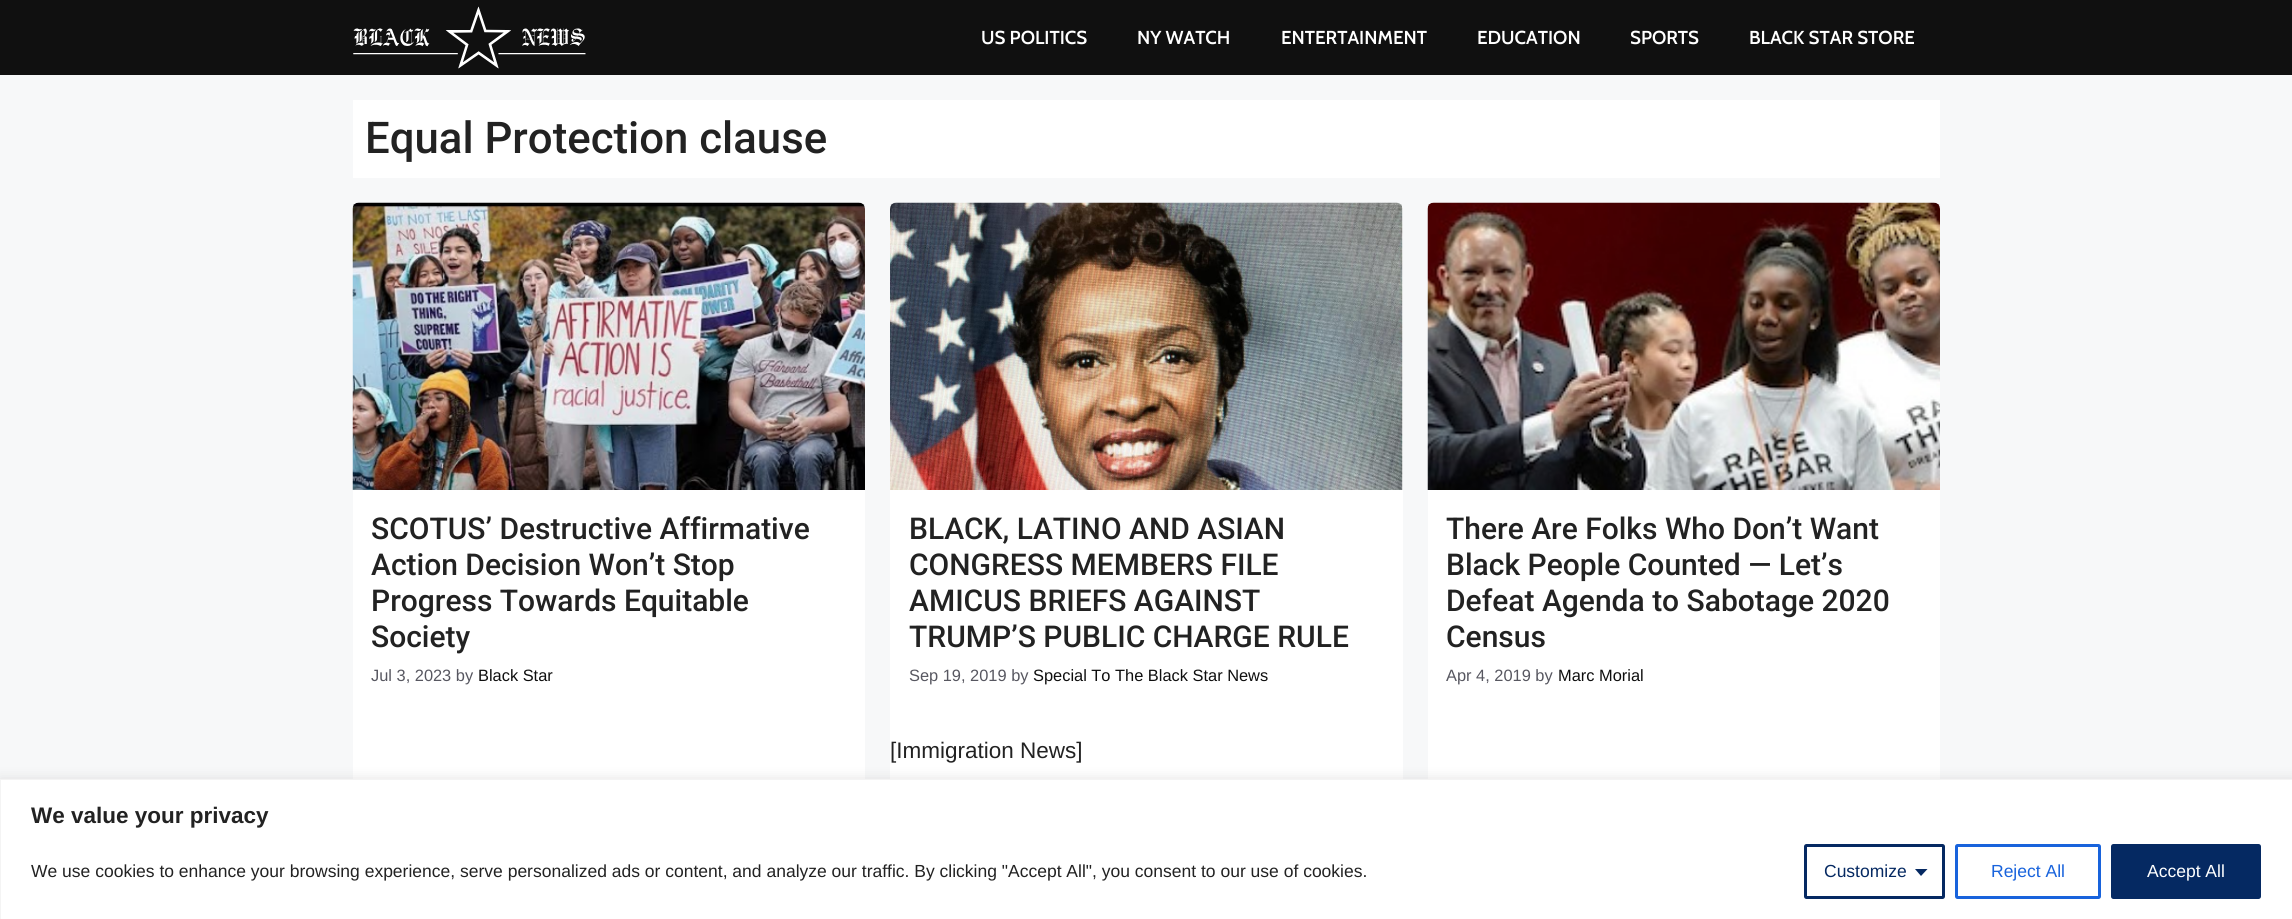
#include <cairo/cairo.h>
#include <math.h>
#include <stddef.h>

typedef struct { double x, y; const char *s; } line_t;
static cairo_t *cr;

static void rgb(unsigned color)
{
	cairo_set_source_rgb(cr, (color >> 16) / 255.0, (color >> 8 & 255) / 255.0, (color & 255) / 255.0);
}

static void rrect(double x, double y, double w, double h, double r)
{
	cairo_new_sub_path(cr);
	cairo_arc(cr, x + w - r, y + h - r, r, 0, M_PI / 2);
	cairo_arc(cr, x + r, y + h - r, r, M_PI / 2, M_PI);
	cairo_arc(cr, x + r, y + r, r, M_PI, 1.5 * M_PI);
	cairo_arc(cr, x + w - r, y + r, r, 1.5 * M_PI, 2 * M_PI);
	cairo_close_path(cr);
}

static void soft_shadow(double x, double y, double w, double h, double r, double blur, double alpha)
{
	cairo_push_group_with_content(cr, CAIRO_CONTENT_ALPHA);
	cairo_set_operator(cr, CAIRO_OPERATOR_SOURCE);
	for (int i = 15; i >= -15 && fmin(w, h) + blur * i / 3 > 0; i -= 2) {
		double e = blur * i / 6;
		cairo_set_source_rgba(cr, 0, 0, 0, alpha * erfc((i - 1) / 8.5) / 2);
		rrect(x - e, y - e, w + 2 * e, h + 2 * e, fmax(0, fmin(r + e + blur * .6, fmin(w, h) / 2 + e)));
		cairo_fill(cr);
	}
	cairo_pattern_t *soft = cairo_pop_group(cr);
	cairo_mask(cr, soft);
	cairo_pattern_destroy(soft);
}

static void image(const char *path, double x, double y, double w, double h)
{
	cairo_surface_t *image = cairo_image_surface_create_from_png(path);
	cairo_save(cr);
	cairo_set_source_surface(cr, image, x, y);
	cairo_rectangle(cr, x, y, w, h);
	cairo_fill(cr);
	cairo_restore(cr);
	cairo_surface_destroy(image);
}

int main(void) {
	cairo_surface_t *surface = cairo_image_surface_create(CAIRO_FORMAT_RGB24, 2292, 919);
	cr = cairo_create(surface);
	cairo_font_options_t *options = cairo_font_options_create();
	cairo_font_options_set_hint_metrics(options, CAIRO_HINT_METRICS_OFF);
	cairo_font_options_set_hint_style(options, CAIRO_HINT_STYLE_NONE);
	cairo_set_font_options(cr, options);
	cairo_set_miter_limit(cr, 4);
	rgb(0xf7f8f9);
	cairo_paint(cr);
	rgb(0x101010);
	cairo_rectangle(cr, 0, 0, 2292, 75);
	cairo_fill(cr);
	image("img/1.png", 353, 6, 233, 63);
	rgb(0xffffff);
	cairo_rectangle(cr, 353, 100, 1587, 78);
	cairo_fill(cr);
	rrect(353, 203, 512, 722, 6);
	cairo_fill(cr);
	image("img/2.png", 352, 202, 513, 288);
	rrect(890, 203, 513, 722, 6);
	cairo_fill(cr);
	image("img/3.png", 890, 202, 513, 288);
	rrect(1428, 203, 512, 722, 6);
	cairo_fill(cr);
	image("img/4.png", 1427, 202, 513, 288);
	rgb(0xacabab);
	soft_shadow(0, 778, 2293, 141, 0, 6, 0.3);
	rgb(0xffffff);
	cairo_rectangle(cr, 0.5, 779.5, 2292, 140);
	cairo_fill_preserve(cr);
	rgb(0xf4f4f4);
	cairo_set_line_width(cr, 1);
	cairo_stroke(cr);
	rrect(1805.5, 845.5, 138, 52, 1);
	rgb(0x052962);
	cairo_set_line_width(cr, 3);
	cairo_stroke(cr);
	cairo_new_path(cr);
	cairo_move_to(cr, 1915, 869);
	cairo_line_to(cr, 1927.5, 869);
	cairo_line_to(cr, 1921, 876);
	cairo_close_path(cr);
	cairo_fill(cr);
	rrect(1956.5, 845.5, 143, 52, 1);
	rgb(0x1863dc);
	cairo_stroke(cr);
	rgb(0x052962);
	rrect(2112.5, 845.5, 147, 52, 1);
	cairo_fill_preserve(cr);
	cairo_stroke(cr);
	cairo_select_font_face(cr, "Cabin SemiBold", CAIRO_FONT_SLANT_NORMAL, CAIRO_FONT_WEIGHT_NORMAL);
	cairo_set_font_size(cr, 18.75);
	rgb(0xffffff);
	{
		static const line_t items[] = {
			{981, 44, "US POLITICS"},
			{1137, 44, "NY WATCH"},
			{1281, 44, "ENTERTAINMENT"},
			{1477, 44, "EDUCATION"},
			{1630, 44, "SPORTS"},
			{1749, 44, "BLACK STAR STORE"},
		};
		for (size_t i = 0; i < sizeof items / sizeof *items; i++) {
			cairo_move_to(cr, items[i].x, items[i].y);
			cairo_show_text(cr, items[i].s);
		}
	}
	cairo_select_font_face(cr, "Roboto Medium", CAIRO_FONT_SLANT_NORMAL, CAIRO_FONT_WEIGHT_NORMAL);
	cairo_set_font_size(cr, 43.75);
	rgb(0x222222);
	cairo_move_to(cr, 365, 153);
	cairo_show_text(cr, "Equal Protection clause");
	cairo_set_font_size(cr, 30);
	{
		static const line_t items[] = {
			{371, 539, "SCOTUS’ Destructive Affirmative"},
			{371, 575, "Action Decision Won’t Stop"},
			{371, 611, "Progress Towards Equitable"},
			{371, 647, "Society"},
		};
		for (size_t i = 0; i < sizeof items / sizeof *items; i++) {
			cairo_move_to(cr, items[i].x, items[i].y);
			cairo_show_text(cr, items[i].s);
		}
	}
	cairo_select_font_face(cr, "Liberation Sans", CAIRO_FONT_SLANT_NORMAL, CAIRO_FONT_WEIGHT_NORMAL);
	cairo_set_font_size(cr, 16.4);
	rgb(0x575760);
	cairo_move_to(cr, 371, 681);
	cairo_show_text(cr, "Jul 3, 2023 by");
	rgb(0x0e0e0e);
	cairo_move_to(cr, 478, 681);
	cairo_show_text(cr, "Black Star");
	cairo_select_font_face(cr, "Roboto Medium", CAIRO_FONT_SLANT_NORMAL, CAIRO_FONT_WEIGHT_NORMAL);
	cairo_set_font_size(cr, 30);
	rgb(0x222222);
	{
		static const line_t items[] = {
			{909, 539, "BLACK, LATINO AND ASIAN"},
			{909, 575, "CONGRESS MEMBERS FILE"},
			{909, 611, "AMICUS BRIEFS AGAINST"},
			{909, 647, "TRUMP’S PUBLIC CHARGE RULE"},
		};
		for (size_t i = 0; i < sizeof items / sizeof *items; i++) {
			cairo_move_to(cr, items[i].x, items[i].y);
			cairo_show_text(cr, items[i].s);
		}
	}
	cairo_select_font_face(cr, "Liberation Sans", CAIRO_FONT_SLANT_NORMAL, CAIRO_FONT_WEIGHT_NORMAL);
	cairo_set_font_size(cr, 16.4);
	rgb(0x575760);
	cairo_move_to(cr, 909, 681);
	cairo_show_text(cr, "Sep 19, 2019 by");
	rgb(0x0e0e0e);
	cairo_move_to(cr, 1033, 681);
	cairo_show_text(cr, "Special To The Black Star News");
	cairo_set_font_size(cr, 22.5);
	rgb(0x222222);
	cairo_move_to(cr, 890, 758);
	cairo_show_text(cr, "[Immigration News]");
	cairo_select_font_face(cr, "Roboto Medium", CAIRO_FONT_SLANT_NORMAL, CAIRO_FONT_WEIGHT_NORMAL);
	cairo_set_font_size(cr, 30);
	{
		static const line_t items[] = {
			{1446, 539, "There Are Folks Who Don’t Want"},
			{1446, 575, "Black People Counted — Let’s"},
			{1446, 611, "Defeat Agenda to Sabotage 2020"},
			{1446, 647, "Census"},
		};
		for (size_t i = 0; i < sizeof items / sizeof *items; i++) {
			cairo_move_to(cr, items[i].x, items[i].y);
			cairo_show_text(cr, items[i].s);
		}
	}
	cairo_select_font_face(cr, "Liberation Sans", CAIRO_FONT_SLANT_NORMAL, CAIRO_FONT_WEIGHT_NORMAL);
	cairo_set_font_size(cr, 16.4);
	rgb(0x575760);
	cairo_move_to(cr, 1446, 681);
	cairo_show_text(cr, "Apr 4, 2019 by");
	rgb(0x0e0e0e);
	cairo_move_to(cr, 1558, 681);
	cairo_show_text(cr, "Marc Morial");
	cairo_select_font_face(cr, "Liberation Sans", CAIRO_FONT_SLANT_NORMAL, CAIRO_FONT_WEIGHT_BOLD);
	cairo_set_font_size(cr, 22.5);
	rgb(0x222222);
	cairo_move_to(cr, 31, 823);
	cairo_show_text(cr, "We value your privacy");
	cairo_select_font_face(cr, "Liberation Sans", CAIRO_FONT_SLANT_NORMAL, CAIRO_FONT_WEIGHT_NORMAL);
	cairo_set_font_size(cr, 17.5);
	cairo_move_to(cr, 31, 877);
	cairo_show_text(cr, "We use cookies to enhance your browsing experience, serve personalized ads or content, and analyze our traffic. By clicking \"Accept All\", you consent to our use of cookies.");
	rgb(0x052962);
	cairo_move_to(cr, 1824, 877);
	cairo_show_text(cr, "Customize");
	rgb(0x1863dc);
	cairo_move_to(cr, 1991, 877);
	cairo_show_text(cr, "Reject All");
	rgb(0xffffff);
	cairo_move_to(cr, 2147, 877);
	cairo_show_text(cr, "Accept All");
	cairo_surface_write_to_png(surface, "page.png");
	cairo_font_options_destroy(options);
	cairo_destroy(cr);
	cairo_surface_destroy(surface);
	return 0;
}
